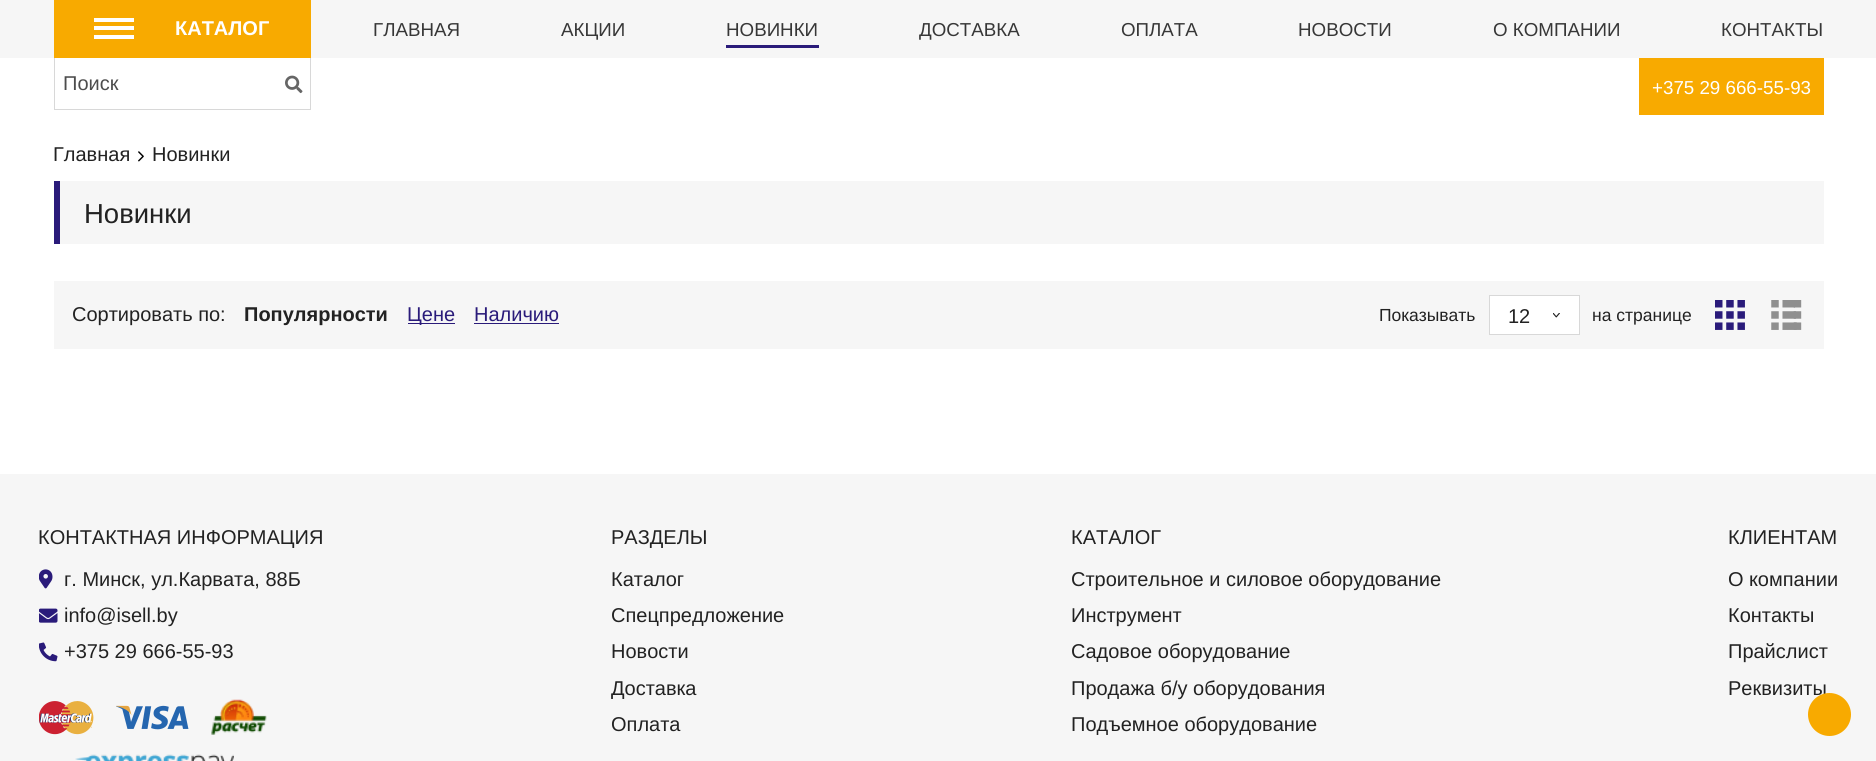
#include <cairo/cairo.h>
#include <math.h>
#include <stddef.h>

typedef struct { double x, y; const char *s; } line_t;
typedef struct { double x, y, w, h; unsigned color; } box_t;
static cairo_t *cr;

static void rgb(unsigned color)
{
	cairo_set_source_rgb(cr, (color >> 16) / 255.0, (color >> 8 & 255) / 255.0, (color & 255) / 255.0);
}

static void image(const char *path, double x, double y, double w, double h)
{
	cairo_surface_t *image = cairo_image_surface_create_from_png(path);
	cairo_save(cr);
	cairo_set_source_surface(cr, image, x, y);
	cairo_rectangle(cr, x, y, w, h);
	cairo_fill(cr);
	cairo_restore(cr);
	cairo_surface_destroy(image);
}

int main(void) {
	cairo_surface_t *surface = cairo_image_surface_create(CAIRO_FORMAT_RGB24, 1876, 761);
	cr = cairo_create(surface);
	cairo_font_options_t *options = cairo_font_options_create();
	cairo_font_options_set_hint_metrics(options, CAIRO_HINT_METRICS_OFF);
	cairo_font_options_set_hint_style(options, CAIRO_HINT_STYLE_NONE);
	cairo_set_font_options(cr, options);
	cairo_set_miter_limit(cr, 4);
	rgb(0xffffff);
	cairo_paint(cr);
	{
		static const box_t items[] = {
			{0, 0, 1876, 58, 0xf6f6f6},
			{54, 0, 257, 58, 0xf8aa00},
			{94, 18, 40, 4, 0xffffff},
			{94, 26, 40, 4, 0xffffff},
			{94, 35, 40, 4, 0xffffff},
			{310, 58, 1, 52, 0xd8d8d8},
			{54, 109, 257, 1, 0xd8d8d8},
			{54, 58, 1, 52, 0xd8d8d8},
		};
		for (size_t i = 0; i < sizeof items / sizeof *items; i++) {
			rgb(items[i].color);
			cairo_rectangle(cr, items[i].x, items[i].y, items[i].w, items[i].h);
			cairo_fill(cr);
		}
	}
	image("img/1.png", 285, 75, 18, 19);
	image("img/2.png", 138, 151, 6, 11);
	{
		static const box_t items[] = {
			{60, 181, 1764, 63, 0xf6f6f6},
			{54, 181, 6, 63, 0x2a1b7a},
			{54, 281, 1770, 68, 0xf6f6f6},
			{408, 323, 47, 1, 0x2a1b7a},
			{474, 323, 85, 1, 0x2a1b7a},
			{1490, 296, 89, 38, 0xffffff},
		};
		for (size_t i = 0; i < sizeof items / sizeof *items; i++) {
			rgb(items[i].color);
			cairo_rectangle(cr, items[i].x, items[i].y, items[i].w, items[i].h);
			cairo_fill(cr);
		}
	}
	image("img/3.png", 1553, 313, 7, 5);
	cairo_rectangle(cr, 1489.5, 295.5, 90, 39);
	rgb(0xd8d8d8);
	cairo_set_line_width(cr, 1);
	cairo_stroke(cr);
	image("img/4.png", 1715, 300, 30, 30);
	image("img/5.png", 1771, 300, 31, 30);
	{
		static const box_t items[] = {
			{726, 45, 93, 3, 0x2a1b7a},
			{1639, 58, 185, 57, 0xf8aa00},
			{0, 474, 1876, 287, 0xf6f6f6},
		};
		for (size_t i = 0; i < sizeof items / sizeof *items; i++) {
			rgb(items[i].color);
			cairo_rectangle(cr, items[i].x, items[i].y, items[i].w, items[i].h);
			cairo_fill(cr);
		}
	}
	image("img/6.png", 39, 569, 14, 20);
	image("img/7.png", 39, 608, 19, 15);
	image("img/8.png", 39, 642, 19, 20);
	image("img/9.png", 39, 701, 55, 34);
	image("img/10.png", 116, 705, 73, 25);
	image("img/11.png", 211, 699, 56, 36);
	image("img/12.png", 75, 754, 159, 7);
	cairo_select_font_face(cr, "Liberation Sans", CAIRO_FONT_SLANT_NORMAL, CAIRO_FONT_WEIGHT_BOLD);
	cairo_set_font_size(cr, 20);
	rgb(0xffffff);
	cairo_move_to(cr, 175, 35);
	cairo_show_text(cr, "КАТАЛОГ");
	cairo_select_font_face(cr, "Liberation Sans", CAIRO_FONT_SLANT_NORMAL, CAIRO_FONT_WEIGHT_NORMAL);
	rgb(0x4d4d4d);
	cairo_move_to(cr, 63, 90);
	cairo_show_text(cr, "Поиск");
	rgb(0x222222);
	cairo_move_to(cr, 53, 161);
	cairo_show_text(cr, "Главная");
	cairo_move_to(cr, 152, 161);
	cairo_show_text(cr, "Новинки");
	cairo_set_font_size(cr, 27.5);
	cairo_move_to(cr, 84, 223);
	cairo_show_text(cr, "Новинки");
	cairo_set_font_size(cr, 20);
	cairo_move_to(cr, 72, 321);
	cairo_show_text(cr, "Сортировать по:");
	cairo_select_font_face(cr, "Liberation Sans", CAIRO_FONT_SLANT_NORMAL, CAIRO_FONT_WEIGHT_BOLD);
	cairo_move_to(cr, 244, 321);
	cairo_show_text(cr, "Популярности");
	cairo_select_font_face(cr, "Liberation Sans", CAIRO_FONT_SLANT_NORMAL, CAIRO_FONT_WEIGHT_NORMAL);
	rgb(0x2a1b7a);
	cairo_move_to(cr, 407, 321);
	cairo_show_text(cr, "Цене");
	cairo_move_to(cr, 474, 321);
	cairo_show_text(cr, "Наличию");
	cairo_set_font_size(cr, 17.5);
	rgb(0x222222);
	cairo_move_to(cr, 1379, 321);
	cairo_show_text(cr, "Показывать");
	cairo_set_font_size(cr, 20);
	cairo_move_to(cr, 1508, 323);
	cairo_show_text(cr, "12");
	cairo_set_font_size(cr, 17.5);
	cairo_move_to(cr, 1592, 321);
	cairo_show_text(cr, "на странице");
	cairo_set_font_size(cr, 18.75);
	rgb(0x373737);
	{
		static const line_t items[] = {
			{373, 36, "ГЛАВНАЯ"},
			{561, 36, "АКЦИИ"},
			{726, 36, "НОВИНКИ"},
			{919, 36, "ДОСТАВКА"},
			{1121, 36, "ОПЛАТА"},
			{1298, 36, "НОВОСТИ"},
			{1493, 36, "О КОМПАНИИ"},
			{1721, 36, "КОНТАКТЫ"},
		};
		for (size_t i = 0; i < sizeof items / sizeof *items; i++) {
			cairo_move_to(cr, items[i].x, items[i].y);
			cairo_show_text(cr, items[i].s);
		}
	}
	rgb(0xffffff);
	cairo_move_to(cr, 1652, 94);
	cairo_show_text(cr, "+375 29 666-55-93");
	cairo_set_font_size(cr, 20);
	rgb(0x222222);
	{
		static const line_t items[] = {
			{38, 544, "КОНТАКТНАЯ ИНФОРМАЦИЯ"},
			{64, 586, "г. Минск, ул.Карвата, 88Б"},
			{64, 622, "info@isell.by"},
			{64, 658, "+375 29 666-55-93"},
			{611, 544, "РАЗДЕЛЫ"},
			{611, 586, "Каталог"},
			{611, 622, "Спецпредложение"},
			{611, 658, "Новости"},
			{611, 695, "Доставка"},
			{611, 731, "Оплата"},
			{1071, 544, "КАТАЛОГ"},
			{1071, 586, "Строительное и силовое оборудование"},
			{1071, 622, "Инструмент"},
			{1071, 658, "Садовое оборудование"},
			{1071, 695, "Продажа б/у оборудования"},
			{1071, 731, "Подъемное оборудование"},
			{1728, 544, "КЛИЕНТАМ"},
			{1728, 586, "О компании"},
			{1728, 622, "Контакты"},
			{1728, 658, "Прайслист"},
			{1728, 695, "Реквизиты"},
		};
		for (size_t i = 0; i < sizeof items / sizeof *items; i++) {
			cairo_move_to(cr, items[i].x, items[i].y);
			cairo_show_text(cr, items[i].s);
		}
	}
	rgb(0xf8aa00);
	cairo_new_path(cr);
	cairo_arc(cr, 1829.5, 714.5, 20, 0, 2 * M_PI);
	cairo_fill_preserve(cr);
	cairo_set_line_width(cr, 3);
	cairo_stroke(cr);
	cairo_surface_write_to_png(surface, "page.png");
	cairo_font_options_destroy(options);
	cairo_destroy(cr);
	cairo_surface_destroy(surface);
	return 0;
}
